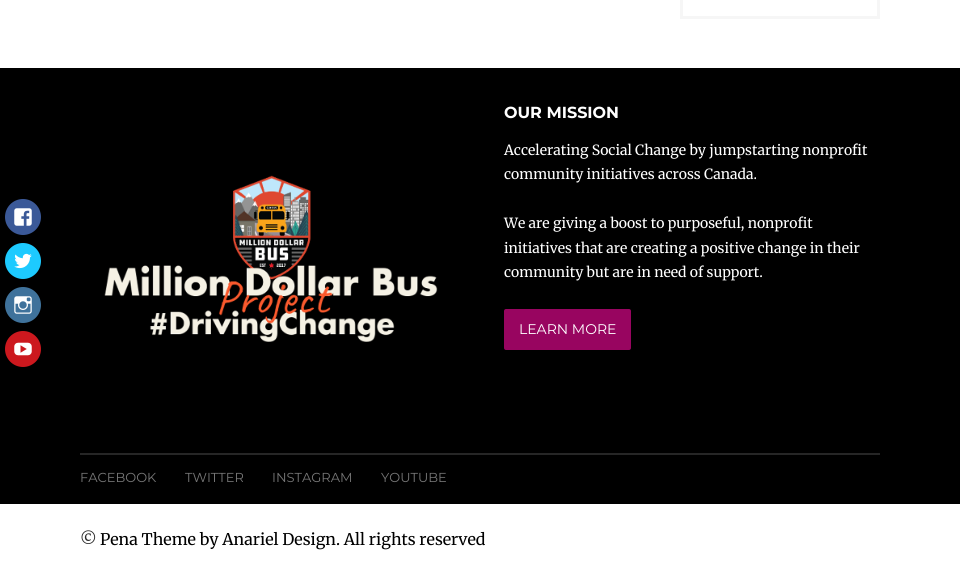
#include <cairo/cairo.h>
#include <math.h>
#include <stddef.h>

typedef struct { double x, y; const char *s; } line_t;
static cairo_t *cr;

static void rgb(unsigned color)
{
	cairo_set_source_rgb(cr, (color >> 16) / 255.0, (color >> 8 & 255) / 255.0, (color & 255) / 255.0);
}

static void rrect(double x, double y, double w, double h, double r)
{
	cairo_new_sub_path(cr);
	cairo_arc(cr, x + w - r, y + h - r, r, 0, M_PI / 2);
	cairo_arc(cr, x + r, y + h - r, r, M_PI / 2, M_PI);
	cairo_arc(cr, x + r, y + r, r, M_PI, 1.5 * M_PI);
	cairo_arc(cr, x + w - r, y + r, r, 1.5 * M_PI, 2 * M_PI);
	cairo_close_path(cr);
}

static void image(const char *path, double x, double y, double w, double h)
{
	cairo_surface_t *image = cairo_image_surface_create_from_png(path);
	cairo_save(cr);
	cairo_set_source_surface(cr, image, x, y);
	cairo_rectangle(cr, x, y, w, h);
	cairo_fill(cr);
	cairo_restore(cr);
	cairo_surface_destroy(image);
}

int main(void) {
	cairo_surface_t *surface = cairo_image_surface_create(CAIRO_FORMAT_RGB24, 960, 573);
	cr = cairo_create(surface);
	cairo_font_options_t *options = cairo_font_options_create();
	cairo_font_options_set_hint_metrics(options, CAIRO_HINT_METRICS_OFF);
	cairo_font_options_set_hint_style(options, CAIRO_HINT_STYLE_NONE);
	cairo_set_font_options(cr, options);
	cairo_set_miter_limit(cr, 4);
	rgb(0xffffff);
	cairo_paint(cr);
	cairo_rectangle(cr, 681.5, -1.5, 197, 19);
	rgb(0xf6f6f6);
	cairo_set_line_width(cr, 3);
	cairo_stroke(cr);
	rgb(0x000000);
	cairo_rectangle(cr, 0, 68, 960, 436);
	cairo_fill(cr);
	rgb(0x3b5998);
	cairo_arc(cr, 23, 217, 18, 0, 2 * M_PI);
	cairo_fill(cr);
	image("img/1.png", 14, 208, 18, 18);
	rgb(0x1dcaff);
	cairo_arc(cr, 23, 261, 18, 0, 2 * M_PI);
	cairo_fill(cr);
	image("img/2.png", 14, 253, 18, 16);
	rgb(0x3f729b);
	cairo_arc(cr, 23, 305, 18, 0, 2 * M_PI);
	cairo_fill(cr);
	image("img/3.png", 14, 296, 18, 18);
	rgb(0xcc181e);
	cairo_arc(cr, 23, 349, 18, 0, 2 * M_PI);
	cairo_fill(cr);
	image("img/4.png", 14, 342, 18, 14);
	image("img/5.png", 104, 175, 334, 167);
	rgb(0x980560);
	rrect(504, 309, 127, 41, 2);
	cairo_fill(cr);
	rgb(0x262626);
	cairo_rectangle(cr, 80, 453, 800, 2);
	cairo_fill(cr);
	cairo_select_font_face(cr, "Montserrat", CAIRO_FONT_SLANT_NORMAL, CAIRO_FONT_WEIGHT_BOLD);
	cairo_set_font_size(cr, 16);
	rgb(0xffffff);
	cairo_move_to(cr, 504, 118);
	cairo_show_text(cr, "OUR MISSION");
	cairo_select_font_face(cr, "Merriweather", CAIRO_FONT_SLANT_NORMAL, CAIRO_FONT_WEIGHT_NORMAL);
	cairo_set_font_size(cr, 14);
	{
		static const line_t items[] = {
			{504, 155, "Accelerating Social Change by jumpstarting nonprofit"},
			{504, 179, "community initiatives across Canada."},
			{504, 228, "We are giving a boost to purposeful, nonprofit"},
			{504, 253, "initiatives that are creating a positive change in their"},
			{504, 277, "community but are in need of support."},
		};
		for (size_t i = 0; i < sizeof items / sizeof *items; i++) {
			cairo_move_to(cr, items[i].x, items[i].y);
			cairo_show_text(cr, items[i].s);
		}
	}
	cairo_select_font_face(cr, "Montserrat", CAIRO_FONT_SLANT_NORMAL, CAIRO_FONT_WEIGHT_NORMAL);
	cairo_move_to(cr, 519, 334);
	cairo_show_text(cr, "LEARN MORE");
	cairo_set_font_size(cr, 13);
	rgb(0x777777);
	{
		static const line_t items[] = {
			{80, 482, "FACEBOOK"},
			{185, 482, "TWITTER"},
			{272, 482, "INSTAGRAM"},
			{381, 482, "YOUTUBE"},
		};
		for (size_t i = 0; i < sizeof items / sizeof *items; i++) {
			cairo_move_to(cr, items[i].x, items[i].y);
			cairo_show_text(cr, items[i].s);
		}
	}
	cairo_select_font_face(cr, "Merriweather", CAIRO_FONT_SLANT_NORMAL, CAIRO_FONT_WEIGHT_NORMAL);
	cairo_set_font_size(cr, 16);
	rgb(0x2b2b2b);
	cairo_move_to(cr, 80, 545);
	cairo_show_text(cr, "©");
	rgb(0x000000);
	cairo_move_to(cr, 100, 545);
	cairo_show_text(cr, "Pena Theme by Anariel Design. All rights reserved");
	cairo_surface_write_to_png(surface, "page.png");
	cairo_font_options_destroy(options);
	cairo_destroy(cr);
	cairo_surface_destroy(surface);
	return 0;
}
